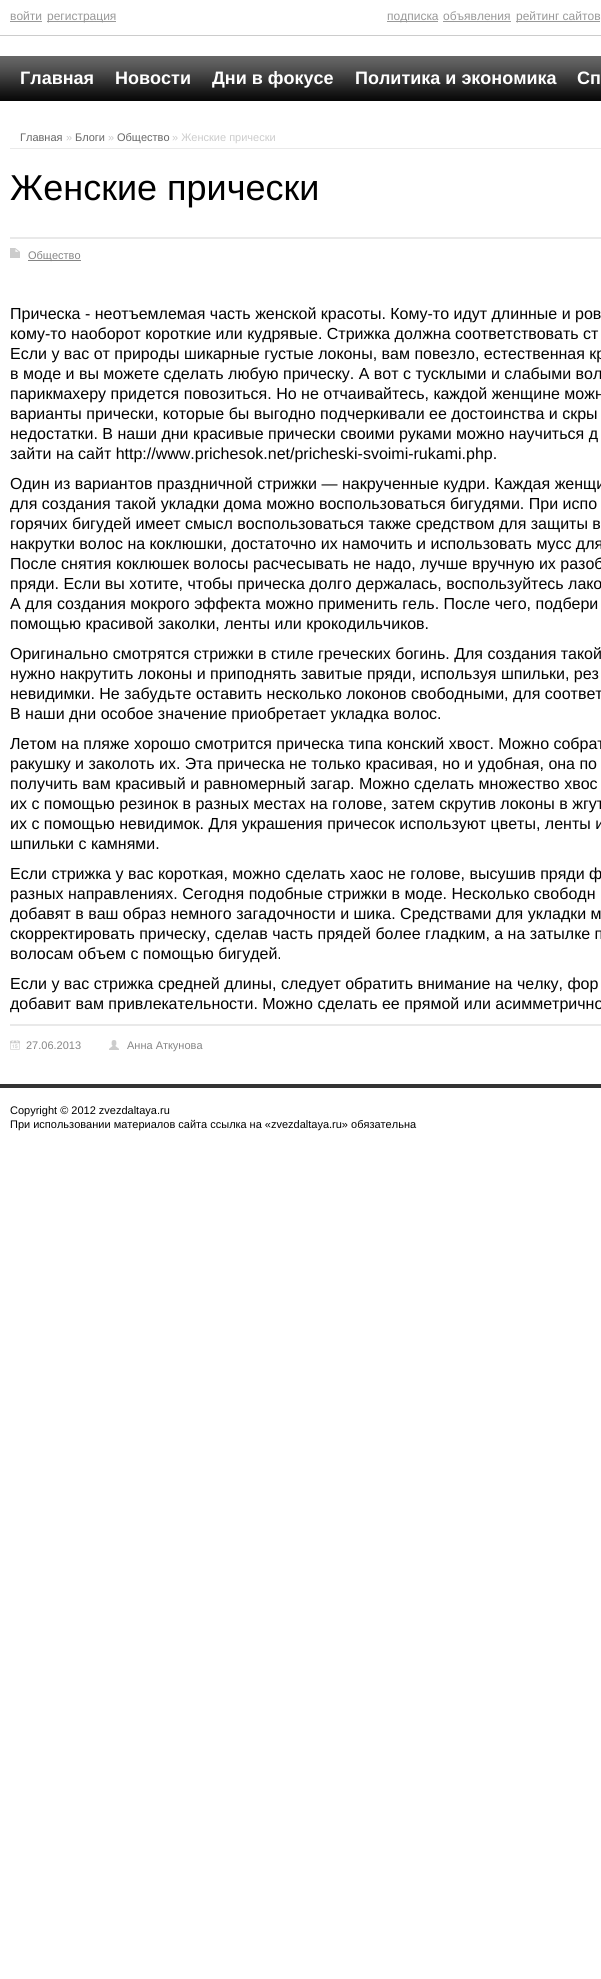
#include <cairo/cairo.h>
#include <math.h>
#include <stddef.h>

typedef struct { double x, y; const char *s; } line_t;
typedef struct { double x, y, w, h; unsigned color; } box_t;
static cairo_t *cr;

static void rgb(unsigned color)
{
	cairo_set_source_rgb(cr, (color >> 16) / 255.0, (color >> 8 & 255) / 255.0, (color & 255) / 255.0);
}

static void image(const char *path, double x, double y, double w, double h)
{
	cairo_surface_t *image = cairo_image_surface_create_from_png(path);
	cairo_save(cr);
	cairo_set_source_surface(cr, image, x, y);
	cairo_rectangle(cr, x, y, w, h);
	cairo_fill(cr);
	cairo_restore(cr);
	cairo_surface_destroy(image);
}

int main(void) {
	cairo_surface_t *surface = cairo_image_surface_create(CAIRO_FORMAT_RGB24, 601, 1979);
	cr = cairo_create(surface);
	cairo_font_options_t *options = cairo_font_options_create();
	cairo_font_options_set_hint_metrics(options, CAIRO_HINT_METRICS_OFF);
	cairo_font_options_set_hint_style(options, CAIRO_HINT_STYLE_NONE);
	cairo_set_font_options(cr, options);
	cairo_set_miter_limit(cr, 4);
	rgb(0xffffff);
	cairo_paint(cr);
	{
		static const box_t items[] = {
			{0, 35, 601, 1, 0xcccccc},
			{10, 21, 32, 1, 0x999999},
			{47, 21, 69, 1, 0x999999},
			{387, 21, 51, 1, 0x999999},
			{443, 21, 68, 1, 0x999999},
			{516, 21, 84, 1, 0x999999},
		};
		for (size_t i = 0; i < sizeof items / sizeof *items; i++) {
			rgb(items[i].color);
			cairo_rectangle(cr, items[i].x, items[i].y, items[i].w, items[i].h);
			cairo_fill(cr);
		}
	}
	image("img/1.png", 0, 56, 601, 45);
	rgb(0xeaeaea);
	cairo_rectangle(cr, 10, 148, 591, 1);
	cairo_fill(cr);
	rgb(0xe9e9e9);
	cairo_rectangle(cr, 10, 237, 591, 2);
	cairo_fill(cr);
	image("img/2.png", 10, 248, 10, 10);
	rgb(0x858585);
	cairo_rectangle(cr, 28, 260, 53, 1);
	cairo_fill(cr);
	rgb(0xe9e9e9);
	cairo_rectangle(cr, 10, 1024, 591, 2);
	cairo_fill(cr);
	image("img/3.png", 10, 1040, 10, 10);
	image("img/4.png", 109, 1040, 10, 10);
	rgb(0x333333);
	cairo_rectangle(cr, 0, 1084, 601, 4);
	cairo_fill(cr);
	cairo_select_font_face(cr, "Liberation Sans", CAIRO_FONT_SLANT_NORMAL, CAIRO_FONT_WEIGHT_NORMAL);
	cairo_set_font_size(cr, 12);
	rgb(0x999999);
	{
		static const line_t items[] = {
			{10, 20, "войти"},
			{47, 20, "регистрация"},
			{387, 20, "подписка"},
			{443, 20, "объявления"},
			{516, 20, "рейтинг сайтов"},
		};
		for (size_t i = 0; i < sizeof items / sizeof *items; i++) {
			cairo_move_to(cr, items[i].x, items[i].y);
			cairo_show_text(cr, items[i].s);
		}
	}
	cairo_select_font_face(cr, "Liberation Sans", CAIRO_FONT_SLANT_NORMAL, CAIRO_FONT_WEIGHT_BOLD);
	cairo_set_font_size(cr, 18);
	rgb(0xffffff);
	{
		static const line_t items[] = {
			{20, 84, "Главная"},
			{115, 84, "Новости"},
			{212, 84, "Дни в фокусе"},
			{355, 84, "Политика и экономика"},
			{577, 84, "Сп"},
		};
		for (size_t i = 0; i < sizeof items / sizeof *items; i++) {
			cairo_move_to(cr, items[i].x, items[i].y);
			cairo_show_text(cr, items[i].s);
		}
	}
	cairo_select_font_face(cr, "Liberation Sans", CAIRO_FONT_SLANT_NORMAL, CAIRO_FONT_WEIGHT_NORMAL);
	cairo_set_font_size(cr, 11);
	rgb(0x666666);
	cairo_move_to(cr, 20, 141);
	cairo_show_text(cr, "Главная");
	rgb(0xcccccc);
	cairo_move_to(cr, 66, 141);
	cairo_show_text(cr, "»");
	rgb(0x666666);
	cairo_move_to(cr, 75, 141);
	cairo_show_text(cr, "Блоги");
	rgb(0xcccccc);
	cairo_move_to(cr, 108, 141);
	cairo_show_text(cr, "»");
	rgb(0x666666);
	cairo_move_to(cr, 117, 141);
	cairo_show_text(cr, "Общество");
	rgb(0xcccccc);
	cairo_move_to(cr, 172, 141);
	cairo_show_text(cr, "» Женские прически");
	cairo_set_font_size(cr, 36);
	rgb(0x000000);
	cairo_move_to(cr, 10, 200);
	cairo_show_text(cr, "Женские прически");
	cairo_set_font_size(cr, 11);
	rgb(0x858585);
	cairo_move_to(cr, 28, 259);
	cairo_show_text(cr, "Общество");
	cairo_set_font_size(cr, 16);
	rgb(0x000000);
	{
		static const line_t items[] = {
			{10, 319, "Прическа - неотъемлемая часть женской красоты. Кому-то идут длинные и ров"},
			{10, 339, "кому-то наоборот короткие или кудрявые. Стрижка должна соответствовать ст"},
			{10, 359, "Если у вас от природы шикарные густые локоны, вам повезло, естественная кр"},
			{10, 379, "в моде и вы можете сделать любую прическу. А вот с тусклыми и слабыми вол"},
			{10, 399, "парикмахеру придется повозиться. Но не отчаивайтесь, каждой женщине можн"},
			{10, 419, "варианты прически, которые бы выгодно подчеркивали ее достоинства и скры"},
			{10, 439, "недостатки. В наши дни красивые прически своими руками можно научиться д"},
			{10, 459, "зайти на сайт http://www.prichesok.net/pricheski-svoimi-rukami.php."},
			{10, 489, "Один из вариантов праздничной стрижки — накрученные кудри. Каждая женщи"},
			{10, 509, "для создания такой укладки дома можно воспользоваться бигудями. При испо"},
			{10, 529, "горячих бигудей имеет смысл воспользоваться также средством для защиты в"},
			{10, 549, "накрутки волос на коклюшки, достаточно их намочить и использовать мусс для"},
			{10, 569, "После снятия коклюшек волосы расчесывать не надо, лучше вручную их разоб"},
			{10, 589, "пряди. Если вы хотите, чтобы прическа долго держалась, воспользуйтесь лако"},
			{10, 609, "А для создания мокрого эффекта можно применить гель. После чего, подбери"},
			{10, 629, "помощью красивой заколки, ленты или крокодильчиков."},
			{10, 659, "Оригинально смотрятся стрижки в стиле греческих богинь. Для создания такой"},
			{10, 679, "нужно накрутить локоны и приподнять завитые пряди, используя шпильки, рез"},
			{10, 699, "невидимки. Не забудьте оставить несколько локонов свободными, для соответ"},
			{10, 719, "В наши дни особое значение приобретает укладка волос."},
			{10, 749, "Летом на пляже хорошо смотрится прическа типа конский хвост. Можно собрат"},
			{10, 769, "ракушку и заколоть их. Эта прическа не только красивая, но и удобная, она по"},
			{10, 789, "получить вам красивый и равномерный загар. Можно сделать множество хвос"},
			{10, 809, "их с помощью резинок в разных местах на голове, затем скрутив локоны в жгут"},
			{10, 829, "их с помощью невидимок. Для украшения причесок используют цветы, ленты и"},
			{10, 849, "шпильки с камнями."},
			{10, 879, "Если стрижка у вас короткая, можно сделать хаос не голове, высушив пряди ф"},
			{10, 899, "разных направлениях. Сегодня подобные стрижки в моде. Несколько свободн"},
			{10, 919, "добавят в ваш образ немного загадочности и шика. Средствами для укладки м"},
			{10, 939, "скорректировать прическу, сделав часть прядей более гладким, а на затылке п"},
			{10, 959, "волосам объем с помощью бигудей."},
			{10, 989, "Если у вас стрижка средней длины, следует обратить внимание на челку, фор"},
			{10, 1009, "добавит вам привлекательности. Можно сделать ее прямой или асимметрично"},
		};
		for (size_t i = 0; i < sizeof items / sizeof *items; i++) {
			cairo_move_to(cr, items[i].x, items[i].y);
			cairo_show_text(cr, items[i].s);
		}
	}
	cairo_set_font_size(cr, 11);
	rgb(0x858585);
	cairo_move_to(cr, 26, 1049);
	cairo_show_text(cr, "27.06.2013");
	cairo_move_to(cr, 127, 1049);
	cairo_show_text(cr, "Анна Аткунова");
	rgb(0x000000);
	cairo_move_to(cr, 10, 1114);
	cairo_show_text(cr, "Copyright © 2012 zvezdaltaya.ru");
	cairo_move_to(cr, 10, 1128);
	cairo_show_text(cr, "При использовании материалов сайта ссылка на «zvezdaltaya.ru» обязательна");
	cairo_surface_write_to_png(surface, "page.png");
	cairo_font_options_destroy(options);
	cairo_destroy(cr);
	cairo_surface_destroy(surface);
	return 0;
}
